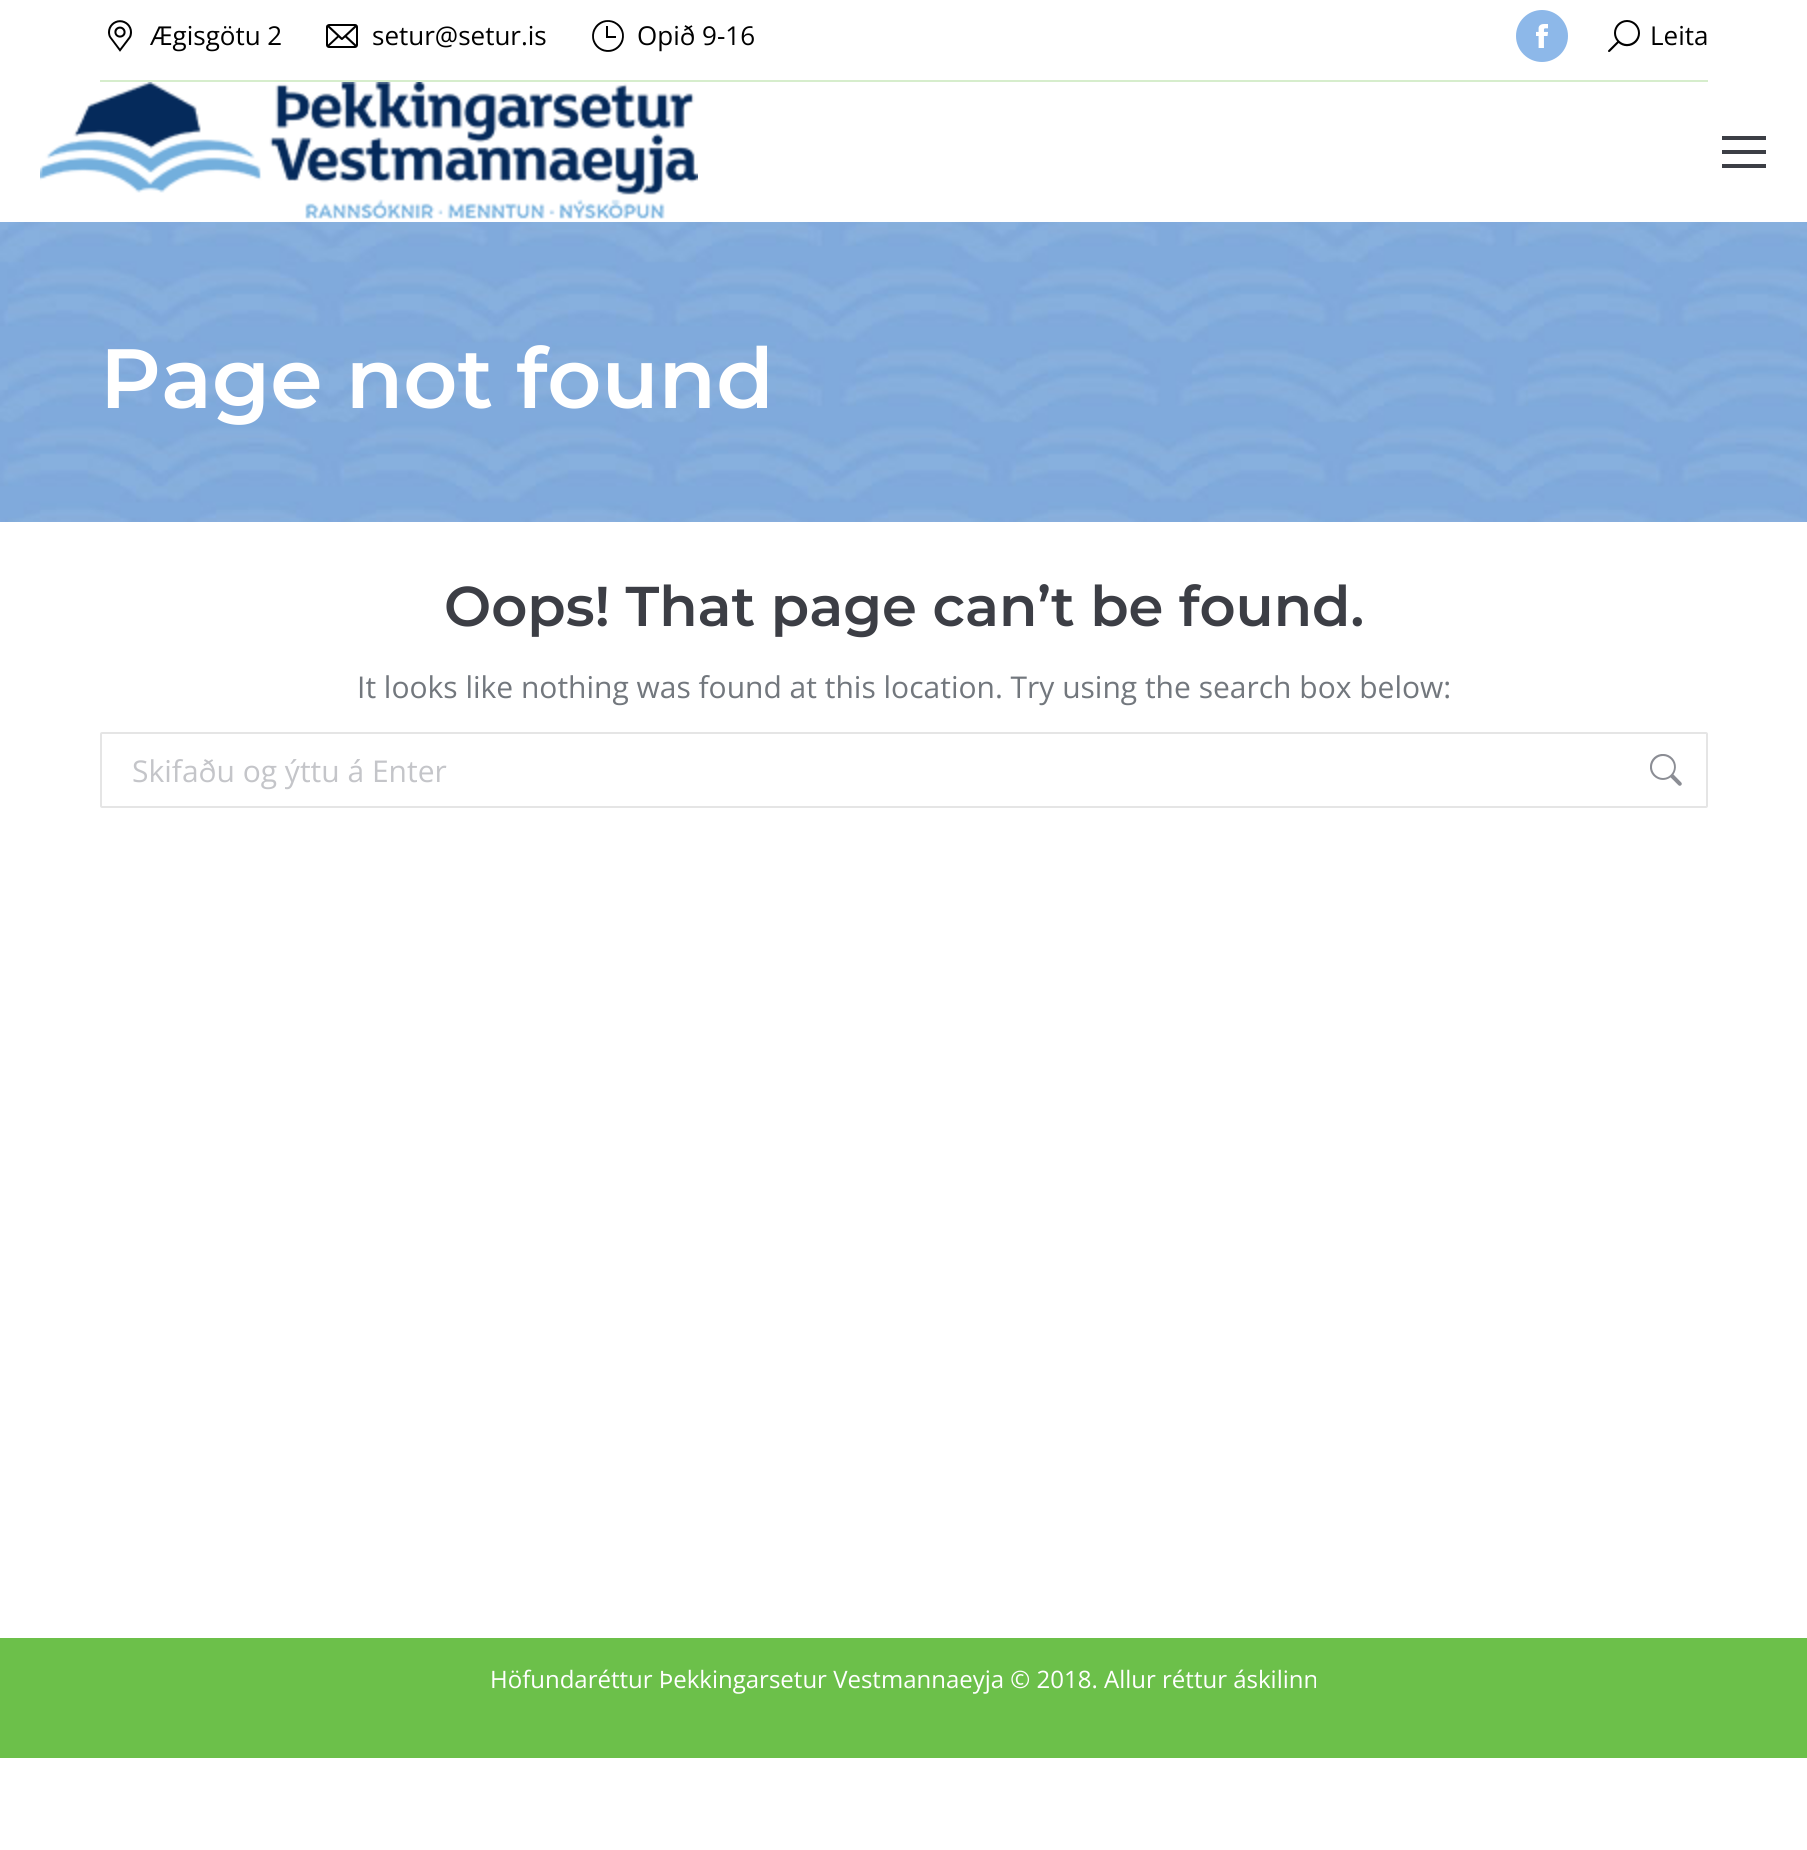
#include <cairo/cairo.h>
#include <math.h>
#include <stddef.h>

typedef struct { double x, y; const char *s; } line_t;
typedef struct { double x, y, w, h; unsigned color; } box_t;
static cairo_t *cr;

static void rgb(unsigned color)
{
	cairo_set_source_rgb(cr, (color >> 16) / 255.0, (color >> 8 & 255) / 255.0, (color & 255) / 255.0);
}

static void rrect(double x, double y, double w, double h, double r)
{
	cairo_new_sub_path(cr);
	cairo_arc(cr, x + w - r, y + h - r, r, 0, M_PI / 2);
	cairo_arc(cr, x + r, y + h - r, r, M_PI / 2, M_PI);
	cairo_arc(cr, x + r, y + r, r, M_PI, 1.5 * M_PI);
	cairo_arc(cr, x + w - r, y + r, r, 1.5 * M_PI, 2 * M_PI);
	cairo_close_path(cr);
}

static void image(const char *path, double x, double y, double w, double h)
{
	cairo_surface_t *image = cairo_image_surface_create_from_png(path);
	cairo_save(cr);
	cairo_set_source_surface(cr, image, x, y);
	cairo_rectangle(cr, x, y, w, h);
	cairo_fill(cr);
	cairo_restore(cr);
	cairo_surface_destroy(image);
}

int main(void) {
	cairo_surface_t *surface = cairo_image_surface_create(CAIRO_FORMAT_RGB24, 1807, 1850);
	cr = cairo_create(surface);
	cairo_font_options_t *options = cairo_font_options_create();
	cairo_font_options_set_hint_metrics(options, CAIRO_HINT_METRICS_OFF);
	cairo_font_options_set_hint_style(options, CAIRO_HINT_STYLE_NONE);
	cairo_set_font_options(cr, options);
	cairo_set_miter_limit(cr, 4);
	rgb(0xffffff);
	cairo_paint(cr);
	image("img/1.png", 108, 20, 24, 32);
	image("img/2.png", 326, 24, 32, 24);
	image("img/3.png", 592, 20, 32, 32);
	rgb(0x8db8e9);
	cairo_arc(cr, 1542, 36, 26, 0, 2 * M_PI);
	cairo_fill(cr);
	image("img/4.png", 1536, 24, 12, 24);
	image("img/5.png", 1608, 20, 32, 32);
	rgb(0xd6edcc);
	cairo_rectangle(cr, 100, 80, 1608, 2);
	cairo_fill(cr);
	image("img/6.png", 40, 82, 658, 137);
	{
		static const box_t items[] = {
			{1722, 136, 44, 4, 0x3c3e45},
			{1722, 150, 44, 4, 0x3c3e45},
			{1722, 164, 44, 4, 0x3c3e45},
		};
		for (size_t i = 0; i < sizeof items / sizeof *items; i++) {
			rgb(items[i].color);
			cairo_rectangle(cr, items[i].x, items[i].y, items[i].w, items[i].h);
			cairo_fill(cr);
		}
	}
	image("img/7.png", 0, 222, 1807, 300);
	rrect(101, 733, 1606, 74, 1);
	rgb(0xe5e5e5);
	cairo_stroke(cr);
	image("img/8.png", 1650, 754, 32, 32);
	rgb(0x6cc04a);
	cairo_rectangle(cr, 0, 1638, 1807, 120);
	cairo_fill(cr);
	cairo_select_font_face(cr, "Open Sans", CAIRO_FONT_SLANT_NORMAL, CAIRO_FONT_WEIGHT_NORMAL);
	cairo_set_font_size(cr, 26);
	rgb(0x000000);
	{
		static const line_t items[] = {
			{150, 45, "Ægisgötu 2"},
			{372, 45, "setur@setur.is"},
			{637, 45, "Opið 9-16"},
			{1650, 45, "Leita"},
		};
		for (size_t i = 0; i < sizeof items / sizeof *items; i++) {
			cairo_move_to(cr, items[i].x, items[i].y);
			cairo_show_text(cr, items[i].s);
		}
	}
	cairo_select_font_face(cr, "Montserrat SemiBold", CAIRO_FONT_SLANT_NORMAL, CAIRO_FONT_WEIGHT_NORMAL);
	cairo_set_font_size(cr, 84);
	rgb(0xffffff);
	cairo_move_to(cr, 100, 408);
	cairo_show_text(cr, "Page not found");
	cairo_set_font_size(cr, 56);
	rgb(0x3c3e45);
	cairo_move_to(cr, 444, 626);
	cairo_show_text(cr, "Oops! That page can’t be found.");
	cairo_select_font_face(cr, "Open Sans", CAIRO_FONT_SLANT_NORMAL, CAIRO_FONT_WEIGHT_NORMAL);
	cairo_set_font_size(cr, 30);
	rgb(0x72777d);
	cairo_move_to(cr, 357, 698);
	cairo_show_text(cr, "It looks like nothing was found at this location. Try using the search box below:");
	rgb(0xc4c5c9);
	cairo_move_to(cr, 132, 782);
	cairo_show_text(cr, "Skifaðu og ýttu á Enter");
	cairo_set_font_size(cr, 24);
	rgb(0xffffff);
	cairo_move_to(cr, 490, 1688);
	cairo_show_text(cr, "Höfundaréttur Þekkingarsetur Vestmannaeyja © 2018. Allur réttur áskilinn");
	cairo_surface_write_to_png(surface, "page.png");
	cairo_font_options_destroy(options);
	cairo_destroy(cr);
	cairo_surface_destroy(surface);
	return 0;
}
